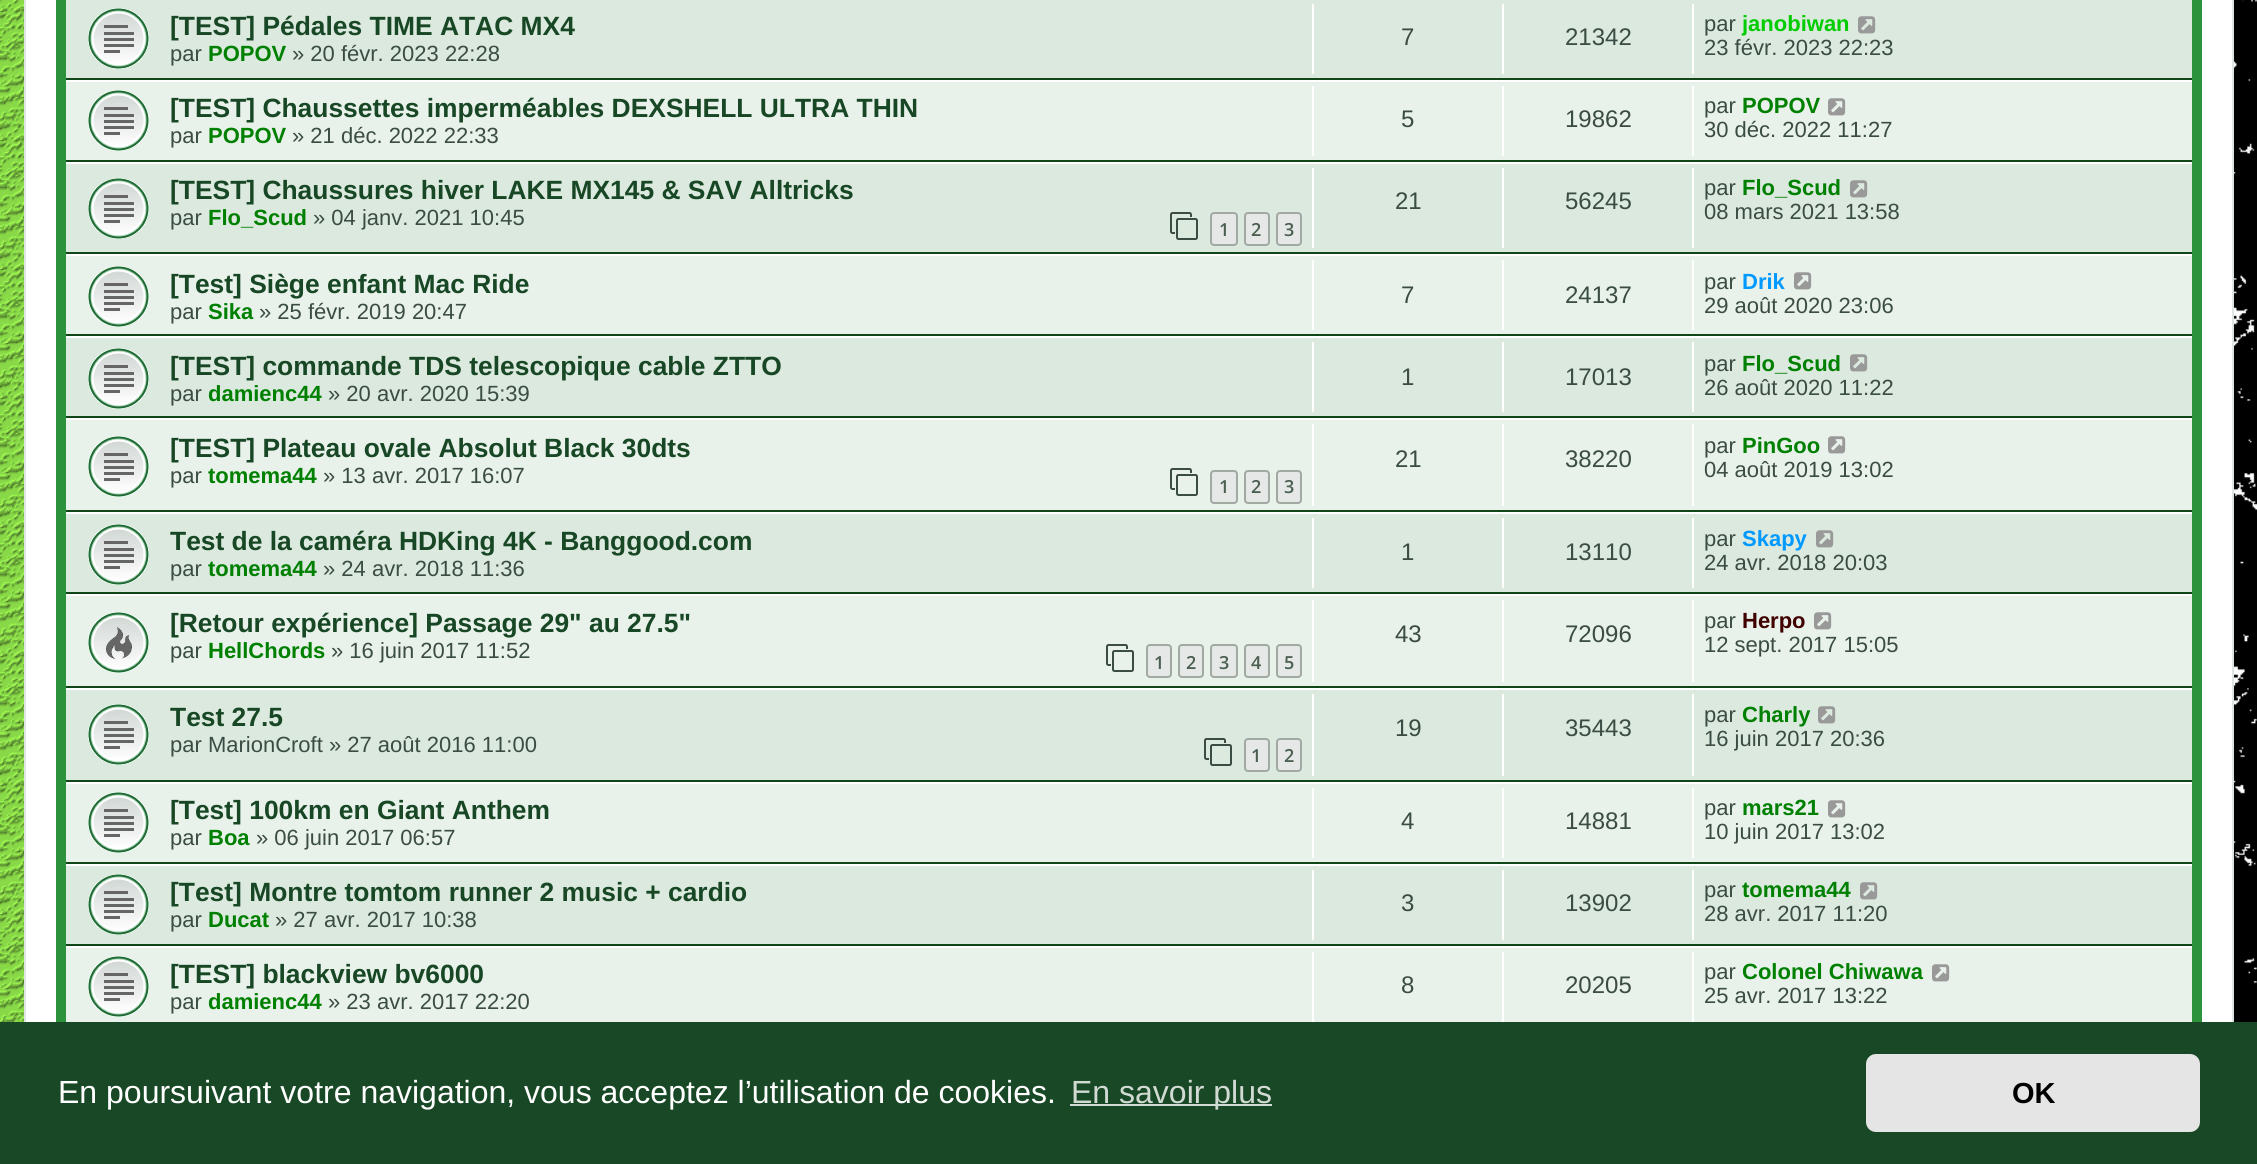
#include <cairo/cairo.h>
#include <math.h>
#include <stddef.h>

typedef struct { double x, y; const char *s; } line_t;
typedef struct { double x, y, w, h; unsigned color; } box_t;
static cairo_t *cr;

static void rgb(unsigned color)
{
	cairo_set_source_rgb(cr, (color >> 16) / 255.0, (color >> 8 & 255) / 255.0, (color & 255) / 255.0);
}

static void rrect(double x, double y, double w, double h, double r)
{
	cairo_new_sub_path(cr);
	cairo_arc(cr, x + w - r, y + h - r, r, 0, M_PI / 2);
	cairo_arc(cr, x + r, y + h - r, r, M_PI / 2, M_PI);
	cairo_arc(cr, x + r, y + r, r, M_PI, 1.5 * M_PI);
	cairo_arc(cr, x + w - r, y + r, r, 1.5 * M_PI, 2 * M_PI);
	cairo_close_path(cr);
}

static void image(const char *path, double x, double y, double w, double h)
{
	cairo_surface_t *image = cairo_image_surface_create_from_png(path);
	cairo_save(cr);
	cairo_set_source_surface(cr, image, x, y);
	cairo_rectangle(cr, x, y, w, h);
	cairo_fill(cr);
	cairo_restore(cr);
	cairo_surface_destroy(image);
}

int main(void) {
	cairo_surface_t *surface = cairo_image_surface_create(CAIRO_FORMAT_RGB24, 2257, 1164);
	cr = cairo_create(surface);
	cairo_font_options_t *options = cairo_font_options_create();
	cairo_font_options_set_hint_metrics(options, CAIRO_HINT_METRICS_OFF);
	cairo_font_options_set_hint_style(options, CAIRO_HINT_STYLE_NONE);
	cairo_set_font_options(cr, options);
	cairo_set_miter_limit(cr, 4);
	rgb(0xffffff);
	cairo_paint(cr);
	image("img/1.png", 0, 0, 2257, 1022);
	rgb(0xffffff);
	cairo_rectangle(cr, 26, 0, 2206, 1022);
	cairo_fill(cr);
	cairo_rectangle(cr, 25, -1, 2208, 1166);
	rgb(0xdfe5e2);
	cairo_stroke(cr);
	{
		static const box_t items[] = {
			{56, 0, 2146, 1022, 0x2d923c},
			{66, 0, 2126, 78, 0xdbe9de},
			{66, 78, 2126, 2, 0x114718},
		};
		for (size_t i = 0; i < sizeof items / sizeof *items; i++) {
			rgb(items[i].color);
			cairo_rectangle(cr, items[i].x, items[i].y, items[i].w, items[i].h);
			cairo_fill(cr);
		}
	}
	image("img/2.png", 88, 8, 61, 61);
	{
		static const box_t items[] = {
			{1312, 4, 2, 70, 0xffffff},
			{1502, 4, 2, 70, 0xffffff},
			{1692, 4, 2, 70, 0xffffff},
		};
		for (size_t i = 0; i < sizeof items / sizeof *items; i++) {
			rgb(items[i].color);
			cairo_rectangle(cr, items[i].x, items[i].y, items[i].w, items[i].h);
			cairo_fill(cr);
		}
	}
	image("img/3.png", 1858, 16, 18, 18);
	{
		static const box_t items[] = {
			{66, 82, 2126, 78, 0xe8f2ea},
			{66, 80, 2126, 2, 0xffffff},
			{66, 160, 2126, 2, 0x114718},
		};
		for (size_t i = 0; i < sizeof items / sizeof *items; i++) {
			rgb(items[i].color);
			cairo_rectangle(cr, items[i].x, items[i].y, items[i].w, items[i].h);
			cairo_fill(cr);
		}
	}
	image("img/4.png", 88, 90, 61, 61);
	{
		static const box_t items[] = {
			{1312, 86, 2, 70, 0xffffff},
			{1502, 86, 2, 70, 0xffffff},
			{1692, 86, 2, 70, 0xffffff},
		};
		for (size_t i = 0; i < sizeof items / sizeof *items; i++) {
			rgb(items[i].color);
			cairo_rectangle(cr, items[i].x, items[i].y, items[i].w, items[i].h);
			cairo_fill(cr);
		}
	}
	image("img/5.png", 1828, 98, 18, 18);
	{
		static const box_t items[] = {
			{66, 164, 2126, 88, 0xdbe9de},
			{66, 162, 2126, 2, 0xffffff},
			{66, 252, 2126, 2, 0x114718},
		};
		for (size_t i = 0; i < sizeof items / sizeof *items; i++) {
			rgb(items[i].color);
			cairo_rectangle(cr, items[i].x, items[i].y, items[i].w, items[i].h);
			cairo_fill(cr);
		}
	}
	image("img/2.png", 88, 178, 61, 61);
	image("img/6.png", 1170, 212, 28, 28);
	rgb(0xe6e8e7);
	rrect(1211, 213, 26, 32, 3);
	cairo_fill_preserve(cr);
	rgb(0xa0aaa3);
	cairo_stroke(cr);
	rgb(0xe6e8e7);
	rrect(1245, 213, 24, 32, 3);
	cairo_fill_preserve(cr);
	rgb(0xa0aaa3);
	cairo_stroke(cr);
	rgb(0xe6e8e7);
	rrect(1277, 213, 24, 32, 3);
	cairo_fill_preserve(cr);
	rgb(0xa0aaa3);
	cairo_stroke(cr);
	{
		static const box_t items[] = {
			{1312, 168, 2, 80, 0xffffff},
			{1502, 168, 2, 80, 0xffffff},
			{1692, 168, 2, 80, 0xffffff},
		};
		for (size_t i = 0; i < sizeof items / sizeof *items; i++) {
			rgb(items[i].color);
			cairo_rectangle(cr, items[i].x, items[i].y, items[i].w, items[i].h);
			cairo_fill(cr);
		}
	}
	image("img/3.png", 1850, 180, 18, 18);
	{
		static const box_t items[] = {
			{66, 256, 2126, 78, 0xe8f2ea},
			{66, 254, 2126, 2, 0xffffff},
			{66, 334, 2126, 2, 0x114718},
		};
		for (size_t i = 0; i < sizeof items / sizeof *items; i++) {
			rgb(items[i].color);
			cairo_rectangle(cr, items[i].x, items[i].y, items[i].w, items[i].h);
			cairo_fill(cr);
		}
	}
	image("img/4.png", 88, 266, 61, 61);
	{
		static const box_t items[] = {
			{1312, 260, 2, 70, 0xffffff},
			{1502, 260, 2, 70, 0xffffff},
			{1692, 260, 2, 70, 0xffffff},
		};
		for (size_t i = 0; i < sizeof items / sizeof *items; i++) {
			rgb(items[i].color);
			cairo_rectangle(cr, items[i].x, items[i].y, items[i].w, items[i].h);
			cairo_fill(cr);
		}
	}
	image("img/5.png", 1794, 272, 18, 18);
	{
		static const box_t items[] = {
			{66, 338, 2126, 78, 0xdbe9de},
			{66, 336, 2126, 2, 0xffffff},
			{66, 416, 2126, 2, 0x114718},
		};
		for (size_t i = 0; i < sizeof items / sizeof *items; i++) {
			rgb(items[i].color);
			cairo_rectangle(cr, items[i].x, items[i].y, items[i].w, items[i].h);
			cairo_fill(cr);
		}
	}
	image("img/2.png", 88, 348, 61, 61);
	{
		static const box_t items[] = {
			{1312, 342, 2, 70, 0xffffff},
			{1502, 342, 2, 70, 0xffffff},
			{1692, 342, 2, 70, 0xffffff},
		};
		for (size_t i = 0; i < sizeof items / sizeof *items; i++) {
			rgb(items[i].color);
			cairo_rectangle(cr, items[i].x, items[i].y, items[i].w, items[i].h);
			cairo_fill(cr);
		}
	}
	image("img/3.png", 1850, 354, 18, 18);
	{
		static const box_t items[] = {
			{66, 420, 2126, 90, 0xe8f2ea},
			{66, 418, 2126, 2, 0xffffff},
			{66, 510, 2126, 2, 0x114718},
		};
		for (size_t i = 0; i < sizeof items / sizeof *items; i++) {
			rgb(items[i].color);
			cairo_rectangle(cr, items[i].x, items[i].y, items[i].w, items[i].h);
			cairo_fill(cr);
		}
	}
	image("img/4.png", 88, 436, 61, 61);
	image("img/7.png", 1170, 468, 28, 28);
	rgb(0xe6e8e7);
	rrect(1211, 471, 26, 32, 3);
	cairo_fill_preserve(cr);
	rgb(0xa0aaa3);
	cairo_stroke(cr);
	rgb(0xe6e8e7);
	rrect(1245, 471, 24, 32, 3);
	cairo_fill_preserve(cr);
	rgb(0xa0aaa3);
	cairo_stroke(cr);
	rgb(0xe6e8e7);
	rrect(1277, 471, 24, 32, 3);
	cairo_fill_preserve(cr);
	rgb(0xa0aaa3);
	cairo_stroke(cr);
	{
		static const box_t items[] = {
			{1312, 424, 2, 82, 0xffffff},
			{1502, 424, 2, 82, 0xffffff},
			{1692, 424, 2, 82, 0xffffff},
		};
		for (size_t i = 0; i < sizeof items / sizeof *items; i++) {
			rgb(items[i].color);
			cairo_rectangle(cr, items[i].x, items[i].y, items[i].w, items[i].h);
			cairo_fill(cr);
		}
	}
	image("img/5.png", 1828, 436, 18, 18);
	{
		static const box_t items[] = {
			{66, 514, 2126, 78, 0xdbe9de},
			{66, 512, 2126, 2, 0xffffff},
			{66, 592, 2126, 2, 0x114718},
		};
		for (size_t i = 0; i < sizeof items / sizeof *items; i++) {
			rgb(items[i].color);
			cairo_rectangle(cr, items[i].x, items[i].y, items[i].w, items[i].h);
			cairo_fill(cr);
		}
	}
	image("img/2.png", 88, 524, 61, 61);
	{
		static const box_t items[] = {
			{1312, 518, 2, 70, 0xffffff},
			{1502, 518, 2, 70, 0xffffff},
			{1692, 518, 2, 70, 0xffffff},
		};
		for (size_t i = 0; i < sizeof items / sizeof *items; i++) {
			rgb(items[i].color);
			cairo_rectangle(cr, items[i].x, items[i].y, items[i].w, items[i].h);
			cairo_fill(cr);
		}
	}
	image("img/3.png", 1816, 530, 18, 18);
	{
		static const box_t items[] = {
			{66, 596, 2126, 90, 0xe8f2ea},
			{66, 594, 2126, 2, 0xffffff},
			{66, 686, 2126, 2, 0x114718},
		};
		for (size_t i = 0; i < sizeof items / sizeof *items; i++) {
			rgb(items[i].color);
			cairo_rectangle(cr, items[i].x, items[i].y, items[i].w, items[i].h);
			cairo_fill(cr);
		}
	}
	image("img/8.png", 88, 612, 61, 61);
	image("img/7.png", 1106, 644, 28, 28);
	rgb(0xe6e8e7);
	rrect(1147, 645, 24, 32, 3);
	cairo_fill_preserve(cr);
	rgb(0xa0aaa3);
	cairo_stroke(cr);
	rgb(0xe6e8e7);
	rrect(1179, 645, 24, 32, 3);
	cairo_fill_preserve(cr);
	rgb(0xa0aaa3);
	cairo_stroke(cr);
	rgb(0xe6e8e7);
	rrect(1211, 645, 26, 32, 3);
	cairo_fill_preserve(cr);
	rgb(0xa0aaa3);
	cairo_stroke(cr);
	rgb(0xe6e8e7);
	rrect(1245, 645, 24, 32, 3);
	cairo_fill_preserve(cr);
	rgb(0xa0aaa3);
	cairo_stroke(cr);
	rgb(0xe6e8e7);
	rrect(1277, 645, 24, 32, 3);
	cairo_fill_preserve(cr);
	rgb(0xa0aaa3);
	cairo_stroke(cr);
	{
		static const box_t items[] = {
			{1312, 600, 2, 82, 0xffffff},
			{1502, 600, 2, 82, 0xffffff},
			{1692, 600, 2, 82, 0xffffff},
		};
		for (size_t i = 0; i < sizeof items / sizeof *items; i++) {
			rgb(items[i].color);
			cairo_rectangle(cr, items[i].x, items[i].y, items[i].w, items[i].h);
			cairo_fill(cr);
		}
	}
	image("img/5.png", 1814, 612, 18, 18);
	{
		static const box_t items[] = {
			{66, 690, 2126, 90, 0xdbe9de},
			{66, 688, 2126, 2, 0xffffff},
			{66, 780, 2126, 2, 0x114718},
		};
		for (size_t i = 0; i < sizeof items / sizeof *items; i++) {
			rgb(items[i].color);
			cairo_rectangle(cr, items[i].x, items[i].y, items[i].w, items[i].h);
			cairo_fill(cr);
		}
	}
	image("img/2.png", 88, 704, 61, 61);
	image("img/6.png", 1204, 738, 28, 28);
	rgb(0xe6e8e7);
	rrect(1245, 739, 24, 32, 3);
	cairo_fill_preserve(cr);
	rgb(0xa0aaa3);
	cairo_stroke(cr);
	rgb(0xe6e8e7);
	rrect(1277, 739, 24, 32, 3);
	cairo_fill_preserve(cr);
	rgb(0xa0aaa3);
	cairo_stroke(cr);
	{
		static const box_t items[] = {
			{1312, 694, 2, 82, 0xffffff},
			{1502, 694, 2, 82, 0xffffff},
			{1692, 694, 2, 82, 0xffffff},
		};
		for (size_t i = 0; i < sizeof items / sizeof *items; i++) {
			rgb(items[i].color);
			cairo_rectangle(cr, items[i].x, items[i].y, items[i].w, items[i].h);
			cairo_fill(cr);
		}
	}
	image("img/3.png", 1818, 706, 18, 18);
	{
		static const box_t items[] = {
			{66, 784, 2126, 78, 0xe8f2ea},
			{66, 782, 2126, 2, 0xffffff},
			{66, 862, 2126, 2, 0x114718},
		};
		for (size_t i = 0; i < sizeof items / sizeof *items; i++) {
			rgb(items[i].color);
			cairo_rectangle(cr, items[i].x, items[i].y, items[i].w, items[i].h);
			cairo_fill(cr);
		}
	}
	image("img/4.png", 88, 792, 61, 61);
	{
		static const box_t items[] = {
			{1312, 788, 2, 70, 0xffffff},
			{1502, 788, 2, 70, 0xffffff},
			{1692, 788, 2, 70, 0xffffff},
		};
		for (size_t i = 0; i < sizeof items / sizeof *items; i++) {
			rgb(items[i].color);
			cairo_rectangle(cr, items[i].x, items[i].y, items[i].w, items[i].h);
			cairo_fill(cr);
		}
	}
	image("img/5.png", 1828, 800, 18, 18);
	{
		static const box_t items[] = {
			{66, 866, 2126, 78, 0xdbe9de},
			{66, 864, 2126, 2, 0xffffff},
			{66, 944, 2126, 2, 0x114718},
		};
		for (size_t i = 0; i < sizeof items / sizeof *items; i++) {
			rgb(items[i].color);
			cairo_rectangle(cr, items[i].x, items[i].y, items[i].w, items[i].h);
			cairo_fill(cr);
		}
	}
	image("img/2.png", 88, 874, 61, 61);
	{
		static const box_t items[] = {
			{1312, 870, 2, 70, 0xffffff},
			{1502, 870, 2, 70, 0xffffff},
			{1692, 870, 2, 70, 0xffffff},
		};
		for (size_t i = 0; i < sizeof items / sizeof *items; i++) {
			rgb(items[i].color);
			cairo_rectangle(cr, items[i].x, items[i].y, items[i].w, items[i].h);
			cairo_fill(cr);
		}
	}
	image("img/3.png", 1860, 882, 18, 18);
	rgb(0xe8f2ea);
	cairo_rectangle(cr, 66, 948, 2126, 74);
	cairo_fill(cr);
	rgb(0xffffff);
	cairo_rectangle(cr, 66, 946, 2126, 2);
	cairo_fill(cr);
	image("img/4.png", 88, 956, 61, 61);
	{
		static const box_t items[] = {
			{1312, 952, 2, 70, 0xffffff},
			{1502, 952, 2, 70, 0xffffff},
			{1692, 952, 2, 70, 0xffffff},
		};
		for (size_t i = 0; i < sizeof items / sizeof *items; i++) {
			rgb(items[i].color);
			cairo_rectangle(cr, items[i].x, items[i].y, items[i].w, items[i].h);
			cairo_fill(cr);
		}
	}
	image("img/5.png", 1932, 964, 18, 18);
	rgb(0x184825);
	cairo_rectangle(cr, 0, 1022, 2257, 142);
	cairo_fill(cr);
	rgb(0xd1dad3);
	cairo_rectangle(cr, 1070, 1104, 202, 2);
	cairo_fill(cr);
	rgb(0xe5e5e5);
	rrect(1866, 1054, 334, 78, 10);
	cairo_fill(cr);
	cairo_select_font_face(cr, "Liberation Sans", CAIRO_FONT_SLANT_NORMAL, CAIRO_FONT_WEIGHT_BOLD);
	cairo_set_font_size(cr, 26.4);
	rgb(0x184725);
	cairo_move_to(cr, 170, 35);
	cairo_show_text(cr, "[TEST] Pédales TIME ATAC MX4");
	cairo_select_font_face(cr, "Liberation Sans", CAIRO_FONT_SLANT_NORMAL, CAIRO_FONT_WEIGHT_NORMAL);
	cairo_set_font_size(cr, 22);
	rgb(0x3a4c43);
	cairo_move_to(cr, 170, 61);
	cairo_show_text(cr, "par");
	cairo_select_font_face(cr, "Liberation Sans", CAIRO_FONT_SLANT_NORMAL, CAIRO_FONT_WEIGHT_BOLD);
	rgb(0x008000);
	cairo_move_to(cr, 208, 61);
	cairo_show_text(cr, "POPOV");
	cairo_select_font_face(cr, "Liberation Sans", CAIRO_FONT_SLANT_NORMAL, CAIRO_FONT_WEIGHT_NORMAL);
	rgb(0x3a4c43);
	cairo_move_to(cr, 292, 61);
	cairo_show_text(cr, "» 20 févr. 2023 22:28");
	cairo_set_font_size(cr, 24);
	cairo_move_to(cr, 1401, 45);
	cairo_show_text(cr, "7");
	cairo_move_to(cr, 1565, 45);
	cairo_show_text(cr, "21342");
	cairo_set_font_size(cr, 22);
	cairo_move_to(cr, 1704, 31);
	cairo_show_text(cr, "par");
	cairo_select_font_face(cr, "Liberation Sans", CAIRO_FONT_SLANT_NORMAL, CAIRO_FONT_WEIGHT_BOLD);
	rgb(0x00cc00);
	cairo_move_to(cr, 1742, 31);
	cairo_show_text(cr, "janobiwan");
	cairo_select_font_face(cr, "Liberation Sans", CAIRO_FONT_SLANT_NORMAL, CAIRO_FONT_WEIGHT_NORMAL);
	rgb(0x3a4c43);
	cairo_move_to(cr, 1704, 55);
	cairo_show_text(cr, "23 févr. 2023 22:23");
	cairo_select_font_face(cr, "Liberation Sans", CAIRO_FONT_SLANT_NORMAL, CAIRO_FONT_WEIGHT_BOLD);
	cairo_set_font_size(cr, 26.4);
	rgb(0x184725);
	cairo_move_to(cr, 170, 117);
	cairo_show_text(cr, "[TEST] Chaussettes imperméables DEXSHELL ULTRA THIN");
	cairo_select_font_face(cr, "Liberation Sans", CAIRO_FONT_SLANT_NORMAL, CAIRO_FONT_WEIGHT_NORMAL);
	cairo_set_font_size(cr, 22);
	rgb(0x3a4c43);
	cairo_move_to(cr, 170, 143);
	cairo_show_text(cr, "par");
	cairo_select_font_face(cr, "Liberation Sans", CAIRO_FONT_SLANT_NORMAL, CAIRO_FONT_WEIGHT_BOLD);
	rgb(0x008000);
	cairo_move_to(cr, 208, 143);
	cairo_show_text(cr, "POPOV");
	cairo_select_font_face(cr, "Liberation Sans", CAIRO_FONT_SLANT_NORMAL, CAIRO_FONT_WEIGHT_NORMAL);
	rgb(0x3a4c43);
	cairo_move_to(cr, 292, 143);
	cairo_show_text(cr, "» 21 déc. 2022 22:33");
	cairo_set_font_size(cr, 24);
	cairo_move_to(cr, 1401, 127);
	cairo_show_text(cr, "5");
	cairo_move_to(cr, 1565, 127);
	cairo_show_text(cr, "19862");
	cairo_set_font_size(cr, 22);
	cairo_move_to(cr, 1704, 113);
	cairo_show_text(cr, "par");
	cairo_select_font_face(cr, "Liberation Sans", CAIRO_FONT_SLANT_NORMAL, CAIRO_FONT_WEIGHT_BOLD);
	rgb(0x008000);
	cairo_move_to(cr, 1742, 113);
	cairo_show_text(cr, "POPOV");
	cairo_select_font_face(cr, "Liberation Sans", CAIRO_FONT_SLANT_NORMAL, CAIRO_FONT_WEIGHT_NORMAL);
	rgb(0x3a4c43);
	cairo_move_to(cr, 1704, 137);
	cairo_show_text(cr, "30 déc. 2022 11:27");
	cairo_select_font_face(cr, "Liberation Sans", CAIRO_FONT_SLANT_NORMAL, CAIRO_FONT_WEIGHT_BOLD);
	cairo_set_font_size(cr, 26.4);
	rgb(0x184725);
	cairo_move_to(cr, 170, 199);
	cairo_show_text(cr, "[TEST] Chaussures hiver LAKE MX145 & SAV Alltricks");
	cairo_select_font_face(cr, "Liberation Sans", CAIRO_FONT_SLANT_NORMAL, CAIRO_FONT_WEIGHT_NORMAL);
	cairo_set_font_size(cr, 22);
	rgb(0x3a4c43);
	cairo_move_to(cr, 170, 225);
	cairo_show_text(cr, "par");
	cairo_select_font_face(cr, "Liberation Sans", CAIRO_FONT_SLANT_NORMAL, CAIRO_FONT_WEIGHT_BOLD);
	rgb(0x008000);
	cairo_move_to(cr, 208, 225);
	cairo_show_text(cr, "Flo_Scud");
	cairo_select_font_face(cr, "Liberation Sans", CAIRO_FONT_SLANT_NORMAL, CAIRO_FONT_WEIGHT_NORMAL);
	rgb(0x3a4c43);
	cairo_move_to(cr, 313, 225);
	cairo_show_text(cr, "» 04 janv. 2021 10:45");
	cairo_select_font_face(cr, "Open Sans SemiBold", CAIRO_FONT_SLANT_NORMAL, CAIRO_FONT_WEIGHT_NORMAL);
	cairo_set_font_size(cr, 18);
	rgb(0x4a5f50);
	{
		static const line_t items[] = {
			{1219, 236, "1"},
			{1251, 236, "2"},
			{1284, 236, "3"},
		};
		for (size_t i = 0; i < sizeof items / sizeof *items; i++) {
			cairo_move_to(cr, items[i].x, items[i].y);
			cairo_show_text(cr, items[i].s);
		}
	}
	cairo_select_font_face(cr, "Liberation Sans", CAIRO_FONT_SLANT_NORMAL, CAIRO_FONT_WEIGHT_NORMAL);
	cairo_set_font_size(cr, 24);
	rgb(0x3a4c43);
	cairo_move_to(cr, 1395, 209);
	cairo_show_text(cr, "21");
	cairo_move_to(cr, 1565, 209);
	cairo_show_text(cr, "56245");
	cairo_set_font_size(cr, 22);
	cairo_move_to(cr, 1704, 195);
	cairo_show_text(cr, "par");
	cairo_select_font_face(cr, "Liberation Sans", CAIRO_FONT_SLANT_NORMAL, CAIRO_FONT_WEIGHT_BOLD);
	rgb(0x008000);
	cairo_move_to(cr, 1742, 195);
	cairo_show_text(cr, "Flo_Scud");
	cairo_select_font_face(cr, "Liberation Sans", CAIRO_FONT_SLANT_NORMAL, CAIRO_FONT_WEIGHT_NORMAL);
	rgb(0x3a4c43);
	cairo_move_to(cr, 1704, 219);
	cairo_show_text(cr, "08 mars 2021 13:58");
	cairo_select_font_face(cr, "Liberation Sans", CAIRO_FONT_SLANT_NORMAL, CAIRO_FONT_WEIGHT_BOLD);
	cairo_set_font_size(cr, 26.4);
	rgb(0x184725);
	cairo_move_to(cr, 170, 293);
	cairo_show_text(cr, "[Test] Siège enfant Mac Ride");
	cairo_select_font_face(cr, "Liberation Sans", CAIRO_FONT_SLANT_NORMAL, CAIRO_FONT_WEIGHT_NORMAL);
	cairo_set_font_size(cr, 22);
	rgb(0x3a4c43);
	cairo_move_to(cr, 170, 319);
	cairo_show_text(cr, "par");
	cairo_select_font_face(cr, "Liberation Sans", CAIRO_FONT_SLANT_NORMAL, CAIRO_FONT_WEIGHT_BOLD);
	rgb(0x008000);
	cairo_move_to(cr, 208, 319);
	cairo_show_text(cr, "Sika");
	cairo_select_font_face(cr, "Liberation Sans", CAIRO_FONT_SLANT_NORMAL, CAIRO_FONT_WEIGHT_NORMAL);
	rgb(0x3a4c43);
	cairo_move_to(cr, 259, 319);
	cairo_show_text(cr, "» 25 févr. 2019 20:47");
	cairo_set_font_size(cr, 24);
	cairo_move_to(cr, 1401, 303);
	cairo_show_text(cr, "7");
	cairo_move_to(cr, 1565, 303);
	cairo_show_text(cr, "24137");
	cairo_set_font_size(cr, 22);
	cairo_move_to(cr, 1704, 289);
	cairo_show_text(cr, "par");
	cairo_select_font_face(cr, "Liberation Sans", CAIRO_FONT_SLANT_NORMAL, CAIRO_FONT_WEIGHT_BOLD);
	rgb(0x0099ff);
	cairo_move_to(cr, 1742, 289);
	cairo_show_text(cr, "Drik");
	cairo_select_font_face(cr, "Liberation Sans", CAIRO_FONT_SLANT_NORMAL, CAIRO_FONT_WEIGHT_NORMAL);
	rgb(0x3a4c43);
	cairo_move_to(cr, 1704, 313);
	cairo_show_text(cr, "29 août 2020 23:06");
	cairo_select_font_face(cr, "Liberation Sans", CAIRO_FONT_SLANT_NORMAL, CAIRO_FONT_WEIGHT_BOLD);
	cairo_set_font_size(cr, 26.4);
	rgb(0x184725);
	cairo_move_to(cr, 170, 375);
	cairo_show_text(cr, "[TEST] commande TDS telescopique cable ZTTO");
	cairo_select_font_face(cr, "Liberation Sans", CAIRO_FONT_SLANT_NORMAL, CAIRO_FONT_WEIGHT_NORMAL);
	cairo_set_font_size(cr, 22);
	rgb(0x3a4c43);
	cairo_move_to(cr, 170, 401);
	cairo_show_text(cr, "par");
	cairo_select_font_face(cr, "Liberation Sans", CAIRO_FONT_SLANT_NORMAL, CAIRO_FONT_WEIGHT_BOLD);
	rgb(0x008000);
	cairo_move_to(cr, 208, 401);
	cairo_show_text(cr, "damienc44");
	cairo_select_font_face(cr, "Liberation Sans", CAIRO_FONT_SLANT_NORMAL, CAIRO_FONT_WEIGHT_NORMAL);
	rgb(0x3a4c43);
	cairo_move_to(cr, 328, 401);
	cairo_show_text(cr, "» 20 avr. 2020 15:39");
	cairo_set_font_size(cr, 24);
	cairo_move_to(cr, 1401, 385);
	cairo_show_text(cr, "1");
	cairo_move_to(cr, 1565, 385);
	cairo_show_text(cr, "17013");
	cairo_set_font_size(cr, 22);
	cairo_move_to(cr, 1704, 371);
	cairo_show_text(cr, "par");
	cairo_select_font_face(cr, "Liberation Sans", CAIRO_FONT_SLANT_NORMAL, CAIRO_FONT_WEIGHT_BOLD);
	rgb(0x008000);
	cairo_move_to(cr, 1742, 371);
	cairo_show_text(cr, "Flo_Scud");
	cairo_select_font_face(cr, "Liberation Sans", CAIRO_FONT_SLANT_NORMAL, CAIRO_FONT_WEIGHT_NORMAL);
	rgb(0x3a4c43);
	cairo_move_to(cr, 1704, 395);
	cairo_show_text(cr, "26 août 2020 11:22");
	cairo_select_font_face(cr, "Liberation Sans", CAIRO_FONT_SLANT_NORMAL, CAIRO_FONT_WEIGHT_BOLD);
	cairo_set_font_size(cr, 26.4);
	rgb(0x184725);
	cairo_move_to(cr, 170, 457);
	cairo_show_text(cr, "[TEST] Plateau ovale Absolut Black 30dts");
	cairo_select_font_face(cr, "Liberation Sans", CAIRO_FONT_SLANT_NORMAL, CAIRO_FONT_WEIGHT_NORMAL);
	cairo_set_font_size(cr, 22);
	rgb(0x3a4c43);
	cairo_move_to(cr, 170, 483);
	cairo_show_text(cr, "par");
	cairo_select_font_face(cr, "Liberation Sans", CAIRO_FONT_SLANT_NORMAL, CAIRO_FONT_WEIGHT_BOLD);
	rgb(0x008000);
	cairo_move_to(cr, 208, 483);
	cairo_show_text(cr, "tomema44");
	cairo_select_font_face(cr, "Liberation Sans", CAIRO_FONT_SLANT_NORMAL, CAIRO_FONT_WEIGHT_NORMAL);
	rgb(0x3a4c43);
	cairo_move_to(cr, 323, 483);
	cairo_show_text(cr, "» 13 avr. 2017 16:07");
	cairo_select_font_face(cr, "Open Sans SemiBold", CAIRO_FONT_SLANT_NORMAL, CAIRO_FONT_WEIGHT_NORMAL);
	cairo_set_font_size(cr, 18);
	rgb(0x4a5f50);
	{
		static const line_t items[] = {
			{1219, 493, "1"},
			{1251, 493, "2"},
			{1284, 493, "3"},
		};
		for (size_t i = 0; i < sizeof items / sizeof *items; i++) {
			cairo_move_to(cr, items[i].x, items[i].y);
			cairo_show_text(cr, items[i].s);
		}
	}
	cairo_select_font_face(cr, "Liberation Sans", CAIRO_FONT_SLANT_NORMAL, CAIRO_FONT_WEIGHT_NORMAL);
	cairo_set_font_size(cr, 24);
	rgb(0x3a4c43);
	cairo_move_to(cr, 1395, 467);
	cairo_show_text(cr, "21");
	cairo_move_to(cr, 1565, 467);
	cairo_show_text(cr, "38220");
	cairo_set_font_size(cr, 22);
	cairo_move_to(cr, 1704, 453);
	cairo_show_text(cr, "par");
	cairo_select_font_face(cr, "Liberation Sans", CAIRO_FONT_SLANT_NORMAL, CAIRO_FONT_WEIGHT_BOLD);
	rgb(0x008000);
	cairo_move_to(cr, 1742, 453);
	cairo_show_text(cr, "PinGoo");
	cairo_select_font_face(cr, "Liberation Sans", CAIRO_FONT_SLANT_NORMAL, CAIRO_FONT_WEIGHT_NORMAL);
	rgb(0x3a4c43);
	cairo_move_to(cr, 1704, 477);
	cairo_show_text(cr, "04 août 2019 13:02");
	cairo_select_font_face(cr, "Liberation Sans", CAIRO_FONT_SLANT_NORMAL, CAIRO_FONT_WEIGHT_BOLD);
	cairo_set_font_size(cr, 26.4);
	rgb(0x184725);
	cairo_move_to(cr, 170, 550);
	cairo_show_text(cr, "Test de la caméra HDKing 4K - Banggood.com");
	cairo_select_font_face(cr, "Liberation Sans", CAIRO_FONT_SLANT_NORMAL, CAIRO_FONT_WEIGHT_NORMAL);
	cairo_set_font_size(cr, 22);
	rgb(0x3a4c43);
	cairo_move_to(cr, 170, 576);
	cairo_show_text(cr, "par");
	cairo_select_font_face(cr, "Liberation Sans", CAIRO_FONT_SLANT_NORMAL, CAIRO_FONT_WEIGHT_BOLD);
	rgb(0x008000);
	cairo_move_to(cr, 208, 576);
	cairo_show_text(cr, "tomema44");
	cairo_select_font_face(cr, "Liberation Sans", CAIRO_FONT_SLANT_NORMAL, CAIRO_FONT_WEIGHT_NORMAL);
	rgb(0x3a4c43);
	cairo_move_to(cr, 323, 576);
	cairo_show_text(cr, "» 24 avr. 2018 11:36");
	cairo_set_font_size(cr, 24);
	cairo_move_to(cr, 1401, 560);
	cairo_show_text(cr, "1");
	cairo_move_to(cr, 1565, 560);
	cairo_show_text(cr, "13110");
	cairo_set_font_size(cr, 22);
	cairo_move_to(cr, 1704, 546);
	cairo_show_text(cr, "par");
	cairo_select_font_face(cr, "Liberation Sans", CAIRO_FONT_SLANT_NORMAL, CAIRO_FONT_WEIGHT_BOLD);
	rgb(0x0099ff);
	cairo_move_to(cr, 1742, 546);
	cairo_show_text(cr, "Skapy");
	cairo_select_font_face(cr, "Liberation Sans", CAIRO_FONT_SLANT_NORMAL, CAIRO_FONT_WEIGHT_NORMAL);
	rgb(0x3a4c43);
	cairo_move_to(cr, 1704, 570);
	cairo_show_text(cr, "24 avr. 2018 20:03");
	cairo_select_font_face(cr, "Liberation Sans", CAIRO_FONT_SLANT_NORMAL, CAIRO_FONT_WEIGHT_BOLD);
	cairo_set_font_size(cr, 26.4);
	rgb(0x184725);
	cairo_move_to(cr, 170, 632);
	cairo_show_text(cr, "[Retour expérience] Passage 29\" au 27.5\"");
	cairo_select_font_face(cr, "Liberation Sans", CAIRO_FONT_SLANT_NORMAL, CAIRO_FONT_WEIGHT_NORMAL);
	cairo_set_font_size(cr, 22);
	rgb(0x3a4c43);
	cairo_move_to(cr, 170, 658);
	cairo_show_text(cr, "par");
	cairo_select_font_face(cr, "Liberation Sans", CAIRO_FONT_SLANT_NORMAL, CAIRO_FONT_WEIGHT_BOLD);
	rgb(0x008000);
	cairo_move_to(cr, 208, 658);
	cairo_show_text(cr, "HellChords");
	cairo_select_font_face(cr, "Liberation Sans", CAIRO_FONT_SLANT_NORMAL, CAIRO_FONT_WEIGHT_NORMAL);
	rgb(0x3a4c43);
	cairo_move_to(cr, 331, 658);
	cairo_show_text(cr, "» 16 juin 2017 11:52");
	cairo_select_font_face(cr, "Open Sans SemiBold", CAIRO_FONT_SLANT_NORMAL, CAIRO_FONT_WEIGHT_NORMAL);
	cairo_set_font_size(cr, 18);
	rgb(0x4a5f50);
	{
		static const line_t items[] = {
			{1154, 669, "1"},
			{1186, 669, "2"},
			{1219, 669, "3"},
			{1251, 669, "4"},
			{1284, 669, "5"},
		};
		for (size_t i = 0; i < sizeof items / sizeof *items; i++) {
			cairo_move_to(cr, items[i].x, items[i].y);
			cairo_show_text(cr, items[i].s);
		}
	}
	cairo_select_font_face(cr, "Liberation Sans", CAIRO_FONT_SLANT_NORMAL, CAIRO_FONT_WEIGHT_NORMAL);
	cairo_set_font_size(cr, 24);
	rgb(0x3a4c43);
	cairo_move_to(cr, 1395, 642);
	cairo_show_text(cr, "43");
	cairo_move_to(cr, 1565, 642);
	cairo_show_text(cr, "72096");
	cairo_set_font_size(cr, 22);
	cairo_move_to(cr, 1704, 628);
	cairo_show_text(cr, "par");
	cairo_select_font_face(cr, "Liberation Sans", CAIRO_FONT_SLANT_NORMAL, CAIRO_FONT_WEIGHT_BOLD);
	rgb(0x400000);
	cairo_move_to(cr, 1742, 628);
	cairo_show_text(cr, "Herpo");
	cairo_select_font_face(cr, "Liberation Sans", CAIRO_FONT_SLANT_NORMAL, CAIRO_FONT_WEIGHT_NORMAL);
	rgb(0x3a4c43);
	cairo_move_to(cr, 1704, 652);
	cairo_show_text(cr, "12 sept. 2017 15:05");
	cairo_select_font_face(cr, "Liberation Sans", CAIRO_FONT_SLANT_NORMAL, CAIRO_FONT_WEIGHT_BOLD);
	cairo_set_font_size(cr, 26.4);
	rgb(0x184725);
	cairo_move_to(cr, 170, 726);
	cairo_show_text(cr, "Test 27.5");
	cairo_select_font_face(cr, "Liberation Sans", CAIRO_FONT_SLANT_NORMAL, CAIRO_FONT_WEIGHT_NORMAL);
	cairo_set_font_size(cr, 22);
	rgb(0x3a4c43);
	cairo_move_to(cr, 170, 752);
	cairo_show_text(cr, "par MarionCroft » 27 août 2016 11:00");
	cairo_select_font_face(cr, "Open Sans SemiBold", CAIRO_FONT_SLANT_NORMAL, CAIRO_FONT_WEIGHT_NORMAL);
	cairo_set_font_size(cr, 18);
	rgb(0x4a5f50);
	cairo_move_to(cr, 1251, 762);
	cairo_show_text(cr, "1");
	cairo_move_to(cr, 1284, 762);
	cairo_show_text(cr, "2");
	cairo_select_font_face(cr, "Liberation Sans", CAIRO_FONT_SLANT_NORMAL, CAIRO_FONT_WEIGHT_NORMAL);
	cairo_set_font_size(cr, 24);
	rgb(0x3a4c43);
	cairo_move_to(cr, 1395, 736);
	cairo_show_text(cr, "19");
	cairo_move_to(cr, 1565, 736);
	cairo_show_text(cr, "35443");
	cairo_set_font_size(cr, 22);
	cairo_move_to(cr, 1704, 722);
	cairo_show_text(cr, "par");
	cairo_select_font_face(cr, "Liberation Sans", CAIRO_FONT_SLANT_NORMAL, CAIRO_FONT_WEIGHT_BOLD);
	rgb(0x008000);
	cairo_move_to(cr, 1742, 722);
	cairo_show_text(cr, "Charly");
	cairo_select_font_face(cr, "Liberation Sans", CAIRO_FONT_SLANT_NORMAL, CAIRO_FONT_WEIGHT_NORMAL);
	rgb(0x3a4c43);
	cairo_move_to(cr, 1704, 746);
	cairo_show_text(cr, "16 juin 2017 20:36");
	cairo_select_font_face(cr, "Liberation Sans", CAIRO_FONT_SLANT_NORMAL, CAIRO_FONT_WEIGHT_BOLD);
	cairo_set_font_size(cr, 26.4);
	rgb(0x184725);
	cairo_move_to(cr, 170, 819);
	cairo_show_text(cr, "[Test] 100km en Giant Anthem");
	cairo_select_font_face(cr, "Liberation Sans", CAIRO_FONT_SLANT_NORMAL, CAIRO_FONT_WEIGHT_NORMAL);
	cairo_set_font_size(cr, 22);
	rgb(0x3a4c43);
	cairo_move_to(cr, 170, 845);
	cairo_show_text(cr, "par");
	cairo_select_font_face(cr, "Liberation Sans", CAIRO_FONT_SLANT_NORMAL, CAIRO_FONT_WEIGHT_BOLD);
	rgb(0x008000);
	cairo_move_to(cr, 208, 845);
	cairo_show_text(cr, "Boa");
	cairo_select_font_face(cr, "Liberation Sans", CAIRO_FONT_SLANT_NORMAL, CAIRO_FONT_WEIGHT_NORMAL);
	rgb(0x3a4c43);
	cairo_move_to(cr, 256, 845);
	cairo_show_text(cr, "» 06 juin 2017 06:57");
	cairo_set_font_size(cr, 24);
	cairo_move_to(cr, 1401, 829);
	cairo_show_text(cr, "4");
	cairo_move_to(cr, 1565, 829);
	cairo_show_text(cr, "14881");
	cairo_set_font_size(cr, 22);
	cairo_move_to(cr, 1704, 815);
	cairo_show_text(cr, "par");
	cairo_select_font_face(cr, "Liberation Sans", CAIRO_FONT_SLANT_NORMAL, CAIRO_FONT_WEIGHT_BOLD);
	rgb(0x008000);
	cairo_move_to(cr, 1742, 815);
	cairo_show_text(cr, "mars21");
	cairo_select_font_face(cr, "Liberation Sans", CAIRO_FONT_SLANT_NORMAL, CAIRO_FONT_WEIGHT_NORMAL);
	rgb(0x3a4c43);
	cairo_move_to(cr, 1704, 839);
	cairo_show_text(cr, "10 juin 2017 13:02");
	cairo_select_font_face(cr, "Liberation Sans", CAIRO_FONT_SLANT_NORMAL, CAIRO_FONT_WEIGHT_BOLD);
	cairo_set_font_size(cr, 26.4);
	rgb(0x184725);
	cairo_move_to(cr, 170, 901);
	cairo_show_text(cr, "[Test] Montre tomtom runner 2 music + cardio");
	cairo_select_font_face(cr, "Liberation Sans", CAIRO_FONT_SLANT_NORMAL, CAIRO_FONT_WEIGHT_NORMAL);
	cairo_set_font_size(cr, 22);
	rgb(0x3a4c43);
	cairo_move_to(cr, 170, 927);
	cairo_show_text(cr, "par");
	cairo_select_font_face(cr, "Liberation Sans", CAIRO_FONT_SLANT_NORMAL, CAIRO_FONT_WEIGHT_BOLD);
	rgb(0x008000);
	cairo_move_to(cr, 208, 927);
	cairo_show_text(cr, "Ducat");
	cairo_select_font_face(cr, "Liberation Sans", CAIRO_FONT_SLANT_NORMAL, CAIRO_FONT_WEIGHT_NORMAL);
	rgb(0x3a4c43);
	cairo_move_to(cr, 275, 927);
	cairo_show_text(cr, "» 27 avr. 2017 10:38");
	cairo_set_font_size(cr, 24);
	cairo_move_to(cr, 1401, 911);
	cairo_show_text(cr, "3");
	cairo_move_to(cr, 1565, 911);
	cairo_show_text(cr, "13902");
	cairo_set_font_size(cr, 22);
	cairo_move_to(cr, 1704, 897);
	cairo_show_text(cr, "par");
	cairo_select_font_face(cr, "Liberation Sans", CAIRO_FONT_SLANT_NORMAL, CAIRO_FONT_WEIGHT_BOLD);
	rgb(0x008000);
	cairo_move_to(cr, 1742, 897);
	cairo_show_text(cr, "tomema44");
	cairo_select_font_face(cr, "Liberation Sans", CAIRO_FONT_SLANT_NORMAL, CAIRO_FONT_WEIGHT_NORMAL);
	rgb(0x3a4c43);
	cairo_move_to(cr, 1704, 921);
	cairo_show_text(cr, "28 avr. 2017 11:20");
	cairo_select_font_face(cr, "Liberation Sans", CAIRO_FONT_SLANT_NORMAL, CAIRO_FONT_WEIGHT_BOLD);
	cairo_set_font_size(cr, 26.4);
	rgb(0x184725);
	cairo_move_to(cr, 170, 983);
	cairo_show_text(cr, "[TEST] blackview bv6000");
	cairo_select_font_face(cr, "Liberation Sans", CAIRO_FONT_SLANT_NORMAL, CAIRO_FONT_WEIGHT_NORMAL);
	cairo_set_font_size(cr, 22);
	rgb(0x3a4c43);
	cairo_move_to(cr, 170, 1009);
	cairo_show_text(cr, "par");
	cairo_select_font_face(cr, "Liberation Sans", CAIRO_FONT_SLANT_NORMAL, CAIRO_FONT_WEIGHT_BOLD);
	rgb(0x008000);
	cairo_move_to(cr, 208, 1009);
	cairo_show_text(cr, "damienc44");
	cairo_select_font_face(cr, "Liberation Sans", CAIRO_FONT_SLANT_NORMAL, CAIRO_FONT_WEIGHT_NORMAL);
	rgb(0x3a4c43);
	cairo_move_to(cr, 328, 1009);
	cairo_show_text(cr, "» 23 avr. 2017 22:20");
	cairo_set_font_size(cr, 24);
	cairo_move_to(cr, 1401, 993);
	cairo_show_text(cr, "8");
	cairo_move_to(cr, 1565, 993);
	cairo_show_text(cr, "20205");
	cairo_set_font_size(cr, 22);
	cairo_move_to(cr, 1704, 979);
	cairo_show_text(cr, "par");
	cairo_select_font_face(cr, "Liberation Sans", CAIRO_FONT_SLANT_NORMAL, CAIRO_FONT_WEIGHT_BOLD);
	rgb(0x008000);
	cairo_move_to(cr, 1742, 979);
	cairo_show_text(cr, "Colonel Chiwawa");
	cairo_select_font_face(cr, "Liberation Sans", CAIRO_FONT_SLANT_NORMAL, CAIRO_FONT_WEIGHT_NORMAL);
	rgb(0x3a4c43);
	cairo_move_to(cr, 1704, 1003);
	cairo_show_text(cr, "25 avr. 2017 13:22");
	cairo_set_font_size(cr, 32);
	rgb(0xffffff);
	cairo_move_to(cr, 58, 1103);
	cairo_show_text(cr, "En poursuivant votre navigation, vous acceptez l’utilisation de cookies.");
	rgb(0xd1dad3);
	cairo_move_to(cr, 1071, 1103);
	cairo_show_text(cr, "En savoir plus");
	cairo_select_font_face(cr, "Liberation Sans", CAIRO_FONT_SLANT_NORMAL, CAIRO_FONT_WEIGHT_BOLD);
	cairo_set_font_size(cr, 29);
	rgb(0x000000);
	cairo_move_to(cr, 2012, 1103);
	cairo_show_text(cr, "OK");
	cairo_surface_write_to_png(surface, "page.png");
	cairo_font_options_destroy(options);
	cairo_destroy(cr);
	cairo_surface_destroy(surface);
	return 0;
}
